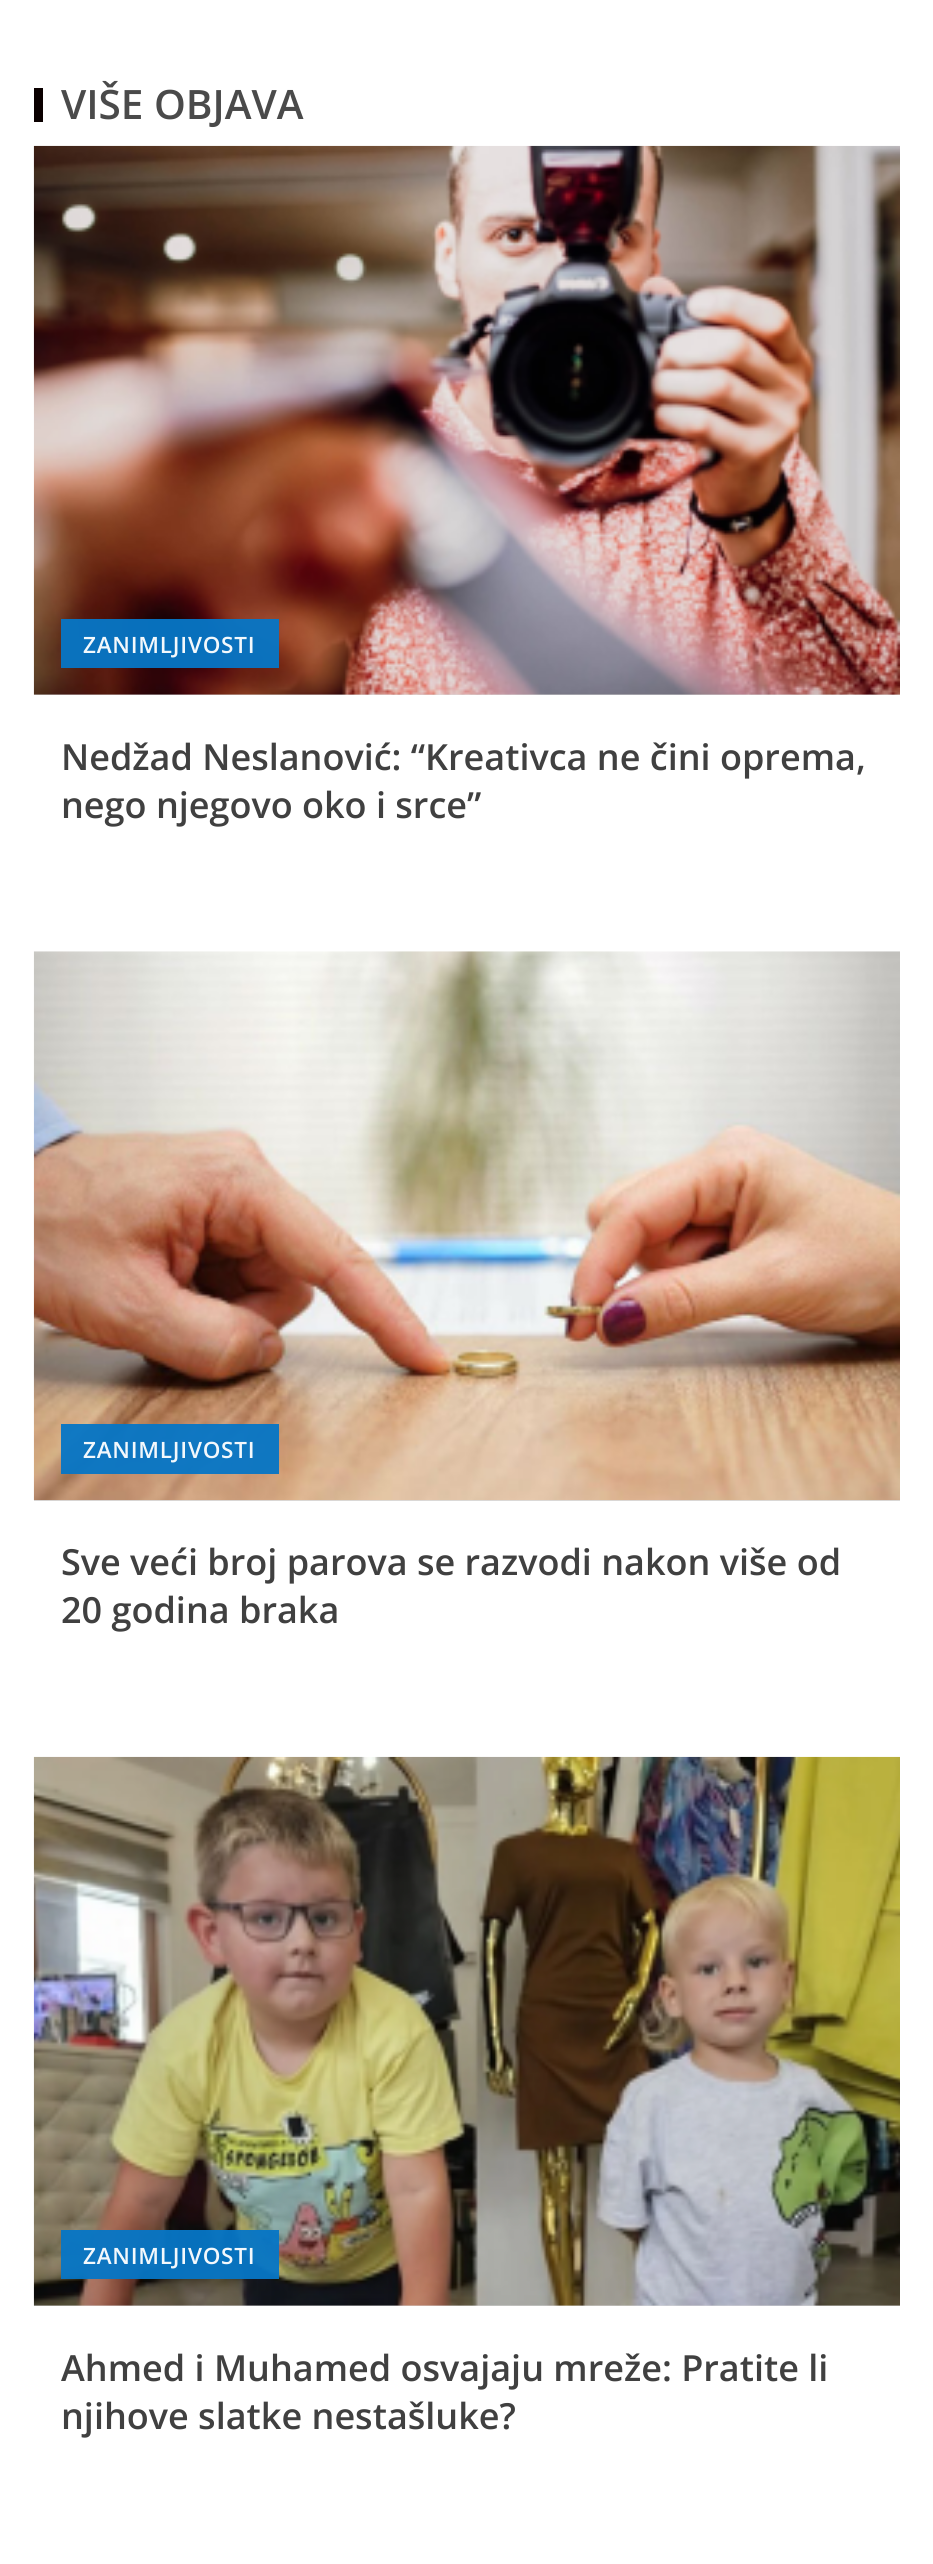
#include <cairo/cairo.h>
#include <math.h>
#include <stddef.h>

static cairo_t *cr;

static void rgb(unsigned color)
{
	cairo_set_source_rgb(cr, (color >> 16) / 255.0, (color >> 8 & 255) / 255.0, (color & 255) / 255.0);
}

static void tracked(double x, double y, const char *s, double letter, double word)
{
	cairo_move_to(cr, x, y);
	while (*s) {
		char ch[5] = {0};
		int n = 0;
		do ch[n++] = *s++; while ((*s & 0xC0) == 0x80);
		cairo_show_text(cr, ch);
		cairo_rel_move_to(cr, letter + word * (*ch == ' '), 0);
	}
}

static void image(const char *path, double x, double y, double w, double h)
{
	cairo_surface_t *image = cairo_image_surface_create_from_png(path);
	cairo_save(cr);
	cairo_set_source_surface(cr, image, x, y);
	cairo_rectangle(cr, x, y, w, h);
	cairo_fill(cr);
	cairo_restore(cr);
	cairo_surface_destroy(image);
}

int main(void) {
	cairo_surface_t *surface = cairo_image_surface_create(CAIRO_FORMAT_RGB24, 933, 2564);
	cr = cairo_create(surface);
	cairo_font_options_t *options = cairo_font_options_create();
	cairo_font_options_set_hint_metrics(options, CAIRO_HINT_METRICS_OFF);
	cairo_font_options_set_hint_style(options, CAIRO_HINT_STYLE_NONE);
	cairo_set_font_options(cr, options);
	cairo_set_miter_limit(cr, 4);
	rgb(0xffffff);
	cairo_paint(cr);
	rgb(0x0a0000);
	cairo_rectangle(cr, 34, 88, 9, 34);
	cairo_fill(cr);
	rgb(0xdadada);
	cairo_rectangle(cr, 34, 694, 866, 1);
	cairo_fill(cr);
	image("img/1.png", 33, 145, 867, 550);
	cairo_set_source_rgba(cr, 0.027, 0.463, 0.776, 0.95);
	cairo_rectangle(cr, 61, 619, 218, 49);
	cairo_fill(cr);
	rgb(0xdadada);
	cairo_rectangle(cr, 34, 1500, 866, 1);
	cairo_fill(cr);
	image("img/2.png", 33, 951, 867, 550);
	cairo_set_source_rgba(cr, 0.027, 0.463, 0.776, 0.95);
	cairo_rectangle(cr, 61, 1424, 218, 50);
	cairo_fill(cr);
	rgb(0xdadada);
	cairo_rectangle(cr, 34, 2305, 866, 1);
	cairo_fill(cr);
	image("img/3.png", 33, 1756, 867, 550);
	cairo_set_source_rgba(cr, 0.027, 0.463, 0.776, 0.95);
	cairo_rectangle(cr, 61, 2230, 218, 49);
	cairo_fill(cr);
	cairo_select_font_face(cr, "Open Sans SemiBold", CAIRO_FONT_SLANT_NORMAL, CAIRO_FONT_WEIGHT_NORMAL);
	cairo_set_font_size(cr, 40.5);
	rgb(0x4a4a4a);
	cairo_move_to(cr, 61, 119);
	cairo_show_text(cr, "VIŠE OBJAVA");
	cairo_set_font_size(cr, 22.5);
	rgb(0xf3f8fc);
	tracked(83, 653, "ZANIMLJIVOSTI", 0.75, 0);
	cairo_set_font_size(cr, 36);
	rgb(0x404040);
	cairo_move_to(cr, 61, 770);
	cairo_show_text(cr, "Nedžad Neslanović: “Kreativca ne čini oprema,");
	cairo_move_to(cr, 61, 818);
	cairo_show_text(cr, "nego njegovo oko i srce”");
	cairo_set_font_size(cr, 22.5);
	rgb(0xf3f8fc);
	tracked(83, 1458, "ZANIMLJIVOSTI", 0.75, 0);
	cairo_set_font_size(cr, 36);
	rgb(0x404040);
	cairo_move_to(cr, 61, 1575);
	cairo_show_text(cr, "Sve veći broj parova se razvodi nakon više od");
	cairo_move_to(cr, 61, 1623);
	cairo_show_text(cr, "20 godina braka");
	cairo_set_font_size(cr, 22.5);
	rgb(0xf3f8fc);
	tracked(83, 2264, "ZANIMLJIVOSTI", 0.75, 0);
	cairo_set_font_size(cr, 36);
	rgb(0x404040);
	cairo_move_to(cr, 61, 2381);
	cairo_show_text(cr, "Ahmed i Muhamed osvajaju mreže: Pratite li");
	cairo_move_to(cr, 61, 2429);
	cairo_show_text(cr, "njihove slatke nestašluke?");
	cairo_surface_write_to_png(surface, "page.png");
	cairo_font_options_destroy(options);
	cairo_destroy(cr);
	cairo_surface_destroy(surface);
	return 0;
}
